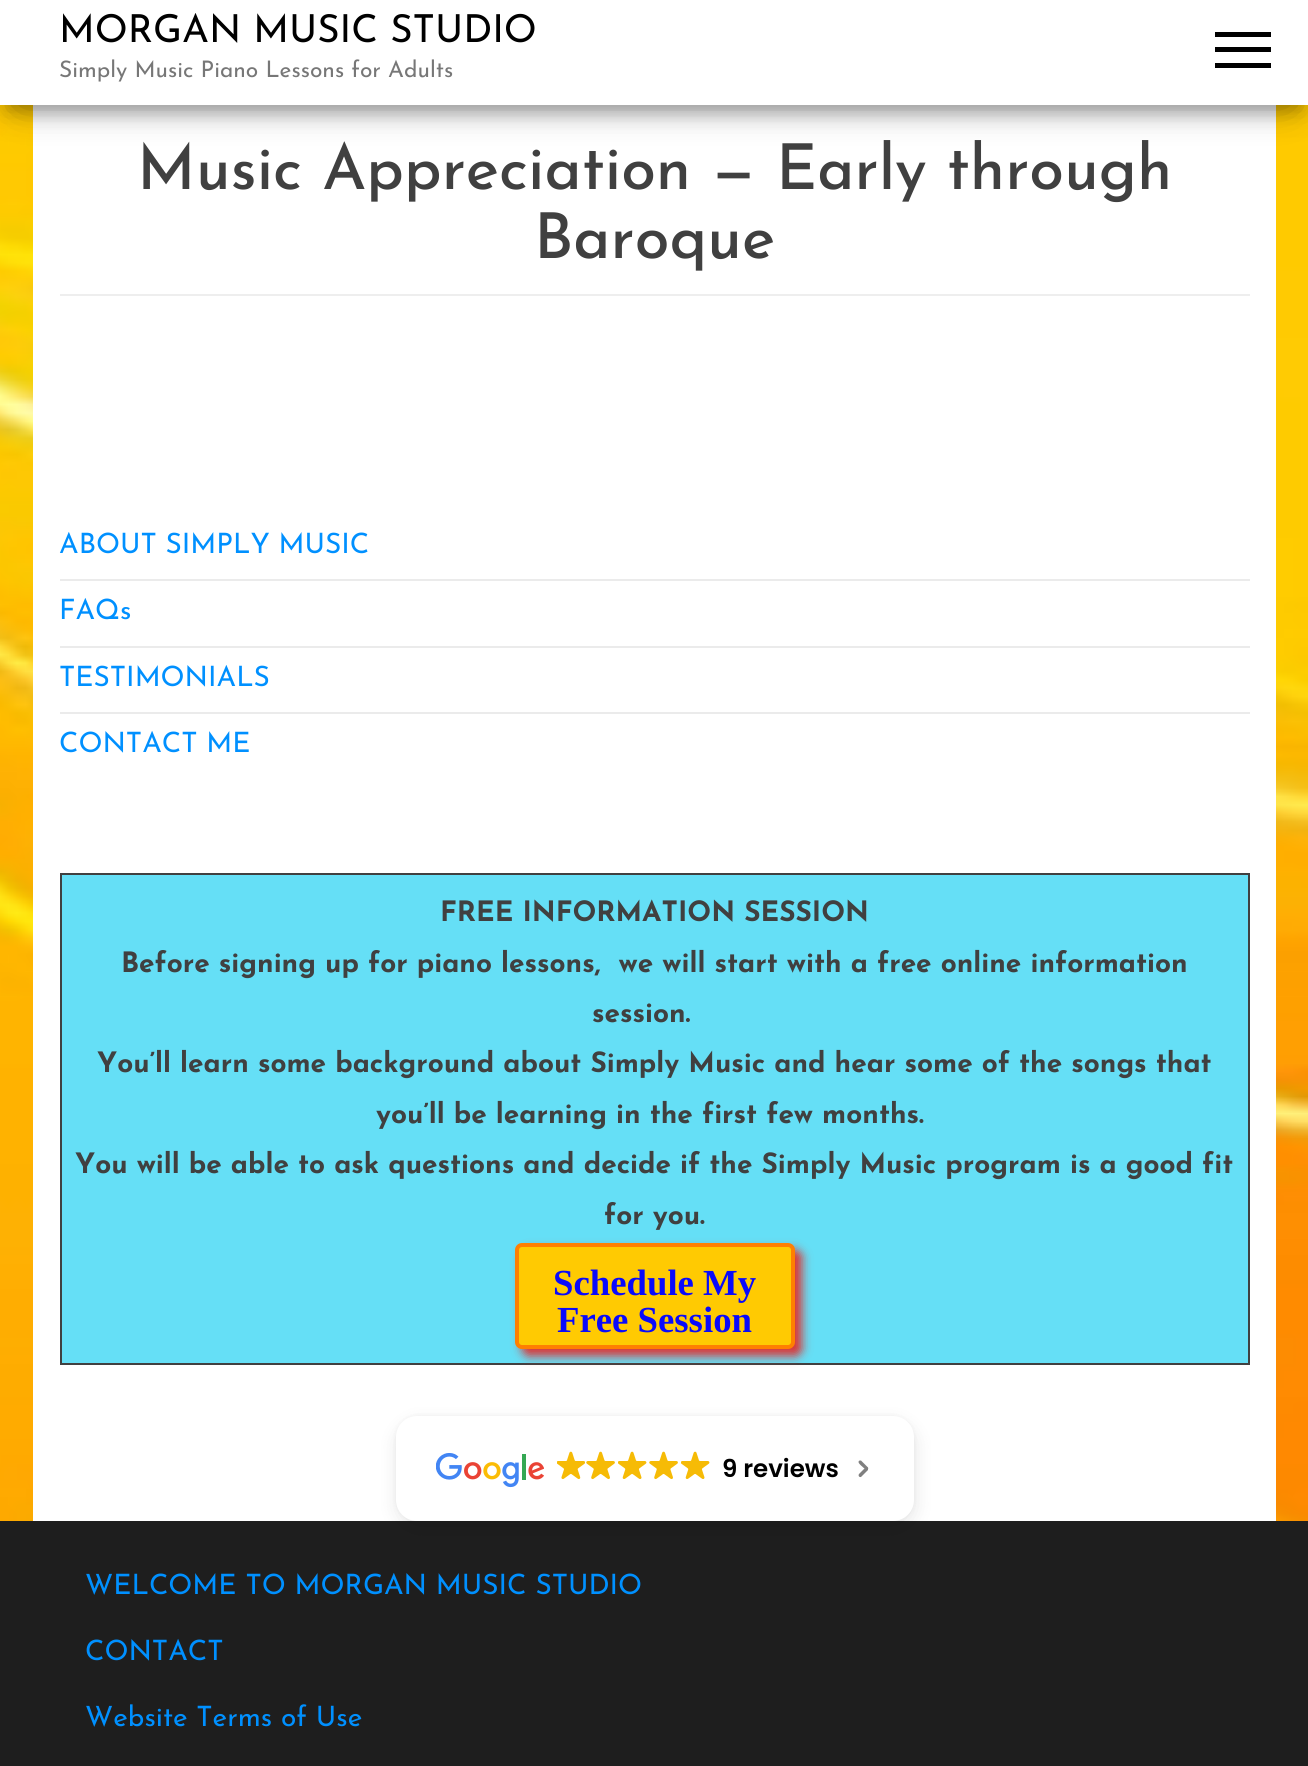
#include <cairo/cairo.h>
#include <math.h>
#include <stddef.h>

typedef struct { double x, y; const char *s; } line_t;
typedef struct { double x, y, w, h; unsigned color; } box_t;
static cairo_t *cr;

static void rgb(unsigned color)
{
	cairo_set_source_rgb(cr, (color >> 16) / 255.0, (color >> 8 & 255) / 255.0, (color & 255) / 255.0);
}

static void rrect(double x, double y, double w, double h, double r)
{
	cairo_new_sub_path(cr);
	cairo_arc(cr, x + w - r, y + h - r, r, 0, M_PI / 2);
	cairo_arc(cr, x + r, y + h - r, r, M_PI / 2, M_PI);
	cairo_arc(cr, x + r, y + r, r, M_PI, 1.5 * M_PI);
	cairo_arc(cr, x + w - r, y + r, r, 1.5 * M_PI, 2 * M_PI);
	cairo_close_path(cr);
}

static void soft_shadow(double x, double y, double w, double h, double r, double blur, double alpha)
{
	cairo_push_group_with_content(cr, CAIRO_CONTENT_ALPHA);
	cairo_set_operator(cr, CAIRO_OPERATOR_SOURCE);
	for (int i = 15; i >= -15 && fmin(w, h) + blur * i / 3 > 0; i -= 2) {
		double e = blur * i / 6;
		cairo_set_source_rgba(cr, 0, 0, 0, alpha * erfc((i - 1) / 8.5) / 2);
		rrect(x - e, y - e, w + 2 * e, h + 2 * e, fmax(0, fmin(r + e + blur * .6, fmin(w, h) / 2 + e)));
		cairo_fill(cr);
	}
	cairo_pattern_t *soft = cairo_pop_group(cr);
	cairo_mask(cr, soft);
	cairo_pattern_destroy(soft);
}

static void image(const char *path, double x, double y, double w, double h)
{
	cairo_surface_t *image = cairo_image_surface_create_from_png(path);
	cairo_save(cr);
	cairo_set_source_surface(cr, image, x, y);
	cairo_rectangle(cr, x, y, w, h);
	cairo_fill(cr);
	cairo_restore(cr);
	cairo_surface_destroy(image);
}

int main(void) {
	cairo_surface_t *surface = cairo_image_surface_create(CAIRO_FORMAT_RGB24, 1308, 1766);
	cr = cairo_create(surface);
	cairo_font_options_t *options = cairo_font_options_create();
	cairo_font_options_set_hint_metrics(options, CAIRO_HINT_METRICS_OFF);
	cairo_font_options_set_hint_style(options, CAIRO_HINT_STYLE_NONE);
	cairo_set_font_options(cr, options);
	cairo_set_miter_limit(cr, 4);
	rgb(0xffffff);
	cairo_paint(cr);
	image("img/1.png", 0, 105, 1308, 1416);
	rgb(0xffffff);
	cairo_rectangle(cr, 33, 105, 1243, 1416);
	cairo_fill(cr);
	rgb(0x000000);
	soft_shadow(9, 23, 1291, 87, 0, 9, 0.2);
	soft_shadow(0, 5, 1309, 105, 0, 17.5, 0.12);
	soft_shadow(21, 39, 1267, 63, 0, 17.5, 0.42);
	{
		static const box_t items[] = {
			{0, 0, 1308, 105, 0xffffff},
			{1215, 32, 56, 5, 0x000000},
			{1215, 47, 56, 5, 0x000000},
			{1215, 63, 56, 5, 0x000000},
			{60, 294, 1190, 2, 0xeeeeee},
			{60, 579, 1190, 2, 0xebebeb},
			{60, 646, 1190, 2, 0xebebeb},
			{60, 712, 1190, 2, 0xebebeb},
			{62, 875, 1186, 488, 0x65dff6},
			{60, 873, 1190, 2, 0x404040},
			{1248, 873, 2, 492, 0x404040},
			{60, 1363, 1190, 2, 0x404040},
			{60, 873, 2, 492, 0x404040},
		};
		for (size_t i = 0; i < sizeof items / sizeof *items; i++) {
			rgb(items[i].color);
			cairo_rectangle(cr, items[i].x, items[i].y, items[i].w, items[i].h);
			cairo_fill(cr);
		}
	}
	rgb(0xdd3333);
	soft_shadow(522, 1250, 280, 106, 7, 5, 1);
	rgb(0xffca02);
	rrect(517, 1245, 276, 102, 5);
	cairo_fill_preserve(cr);
	rgb(0xff7f01);
	cairo_set_line_width(cr, 4);
	cairo_stroke(cr);
	rgb(0x1e1e1e);
	cairo_rectangle(cr, 0, 1521, 1308, 245);
	cairo_fill(cr);
	rgb(0x000000);
	soft_shadow(396, 1416, 518, 105, 21, 2, 0.05);
	soft_shadow(397, 1423, 518, 105, 21, 9, 0.1);
	rgb(0xffffff);
	rrect(396, 1416, 518, 105, 21);
	cairo_fill(cr);
	image("img/2.png", 436, 1453, 108, 35);
	image("img/3.png", 557, 1451, 28, 29);
	image("img/4.png", 586, 1451, 29, 29);
	image("img/5.png", 618, 1451, 29, 28);
	image("img/4.png", 649, 1451, 29, 29);
	image("img/5.png", 681, 1451, 29, 28);
	rgb(0x808080);
	cairo_new_path(cr);
	cairo_move_to(cr, 859, 1474);
	cairo_line_to(cr, 863, 1470);
	cairo_curve_to(cr, 864, 1469, 866.5, 1466, 868, 1468);
	cairo_line_to(cr, 868, 1470);
	cairo_line_to(cr, 861, 1477);
	cairo_curve_to(cr, 859, 1477.5, 858, 1475.5, 859, 1474);
	cairo_close_path(cr);
	cairo_fill(cr);
	cairo_new_path(cr);
	cairo_move_to(cr, 865.5, 1469.5);
	cairo_line_to(cr, 861, 1465.5);
	cairo_curve_to(cr, 860, 1464.5, 857, 1462, 859.5, 1460.5);
	cairo_line_to(cr, 861, 1460.5);
	cairo_line_to(cr, 868, 1467.5);
	cairo_curve_to(cr, 869, 1469.5, 866.5, 1471, 865.5, 1469.5);
	cairo_close_path(cr);
	cairo_fill(cr);
	cairo_select_font_face(cr, "Josefin Sans", CAIRO_FONT_SLANT_NORMAL, CAIRO_FONT_WEIGHT_NORMAL);
	cairo_set_font_size(cr, 38.5);
	rgb(0x000000);
	cairo_move_to(cr, 59, 42);
	cairo_show_text(cr, "MORGAN MUSIC STUDIO");
	cairo_set_font_size(cr, 22.75);
	rgb(0x777777);
	cairo_move_to(cr, 59, 77);
	cairo_show_text(cr, "Simply Music Piano Lessons for Adults");
	cairo_select_font_face(cr, "Josefin Sans Medium", CAIRO_FONT_SLANT_NORMAL, CAIRO_FONT_WEIGHT_NORMAL);
	cairo_set_font_size(cr, 63);
	rgb(0x404040);
	cairo_move_to(cr, 137, 189);
	cairo_show_text(cr, "Music Appreciation — Early through");
	cairo_move_to(cr, 534, 258);
	cairo_show_text(cr, "Baroque");
	cairo_select_font_face(cr, "Josefin Sans", CAIRO_FONT_SLANT_NORMAL, CAIRO_FONT_WEIGHT_NORMAL);
	cairo_set_font_size(cr, 28);
	rgb(0x0090ff);
	{
		static const line_t items[] = {
			{59, 553, "ABOUT SIMPLY MUSIC"},
			{59, 619, "FAQs"},
			{59, 686, "TESTIMONIALS"},
			{59, 752, "CONTACT ME"},
		};
		for (size_t i = 0; i < sizeof items / sizeof *items; i++) {
			cairo_move_to(cr, items[i].x, items[i].y);
			cairo_show_text(cr, items[i].s);
		}
	}
	cairo_select_font_face(cr, "Josefin Sans", CAIRO_FONT_SLANT_NORMAL, CAIRO_FONT_WEIGHT_BOLD);
	rgb(0x404040);
	{
		static const line_t items[] = {
			{440, 921, "FREE INFORMATION SESSION"},
			{121, 972, "Before signing up for piano lessons,  we will start with a free online information"},
			{592, 1022, "session."},
			{97, 1072, "You’ll learn some background about Simply Music and hear some of the songs that"},
			{376, 1123, "you’ll be learning in the first few months."},
			{75, 1173, "You will be able to ask questions and decide if the Simply Music program is a good fit"},
			{604, 1224, "for you."},
		};
		for (size_t i = 0; i < sizeof items / sizeof *items; i++) {
			cairo_move_to(cr, items[i].x, items[i].y);
			cairo_show_text(cr, items[i].s);
		}
	}
	cairo_select_font_face(cr, "Liberation Serif", CAIRO_FONT_SLANT_NORMAL, CAIRO_FONT_WEIGHT_BOLD);
	cairo_set_font_size(cr, 36.75);
	rgb(0x0a0afb);
	cairo_move_to(cr, 553, 1295);
	cairo_show_text(cr, "Schedule My");
	cairo_move_to(cr, 557, 1332);
	cairo_show_text(cr, "Free Session");
	cairo_select_font_face(cr, "Poppins SemiBold", CAIRO_FONT_SLANT_NORMAL, CAIRO_FONT_WEIGHT_NORMAL);
	cairo_set_font_size(cr, 24.5);
	rgb(0x000000);
	cairo_move_to(cr, 722, 1477);
	cairo_show_text(cr, "9 reviews");
	cairo_select_font_face(cr, "Josefin Sans", CAIRO_FONT_SLANT_NORMAL, CAIRO_FONT_WEIGHT_NORMAL);
	cairo_set_font_size(cr, 28);
	rgb(0x0090ff);
	{
		static const line_t items[] = {
			{85, 1594, "WELCOME TO MORGAN MUSIC STUDIO"},
			{85, 1660, "CONTACT"},
			{85, 1726, "Website Terms of Use"},
		};
		for (size_t i = 0; i < sizeof items / sizeof *items; i++) {
			cairo_move_to(cr, items[i].x, items[i].y);
			cairo_show_text(cr, items[i].s);
		}
	}
	cairo_surface_write_to_png(surface, "page.png");
	cairo_font_options_destroy(options);
	cairo_destroy(cr);
	cairo_surface_destroy(surface);
	return 0;
}
